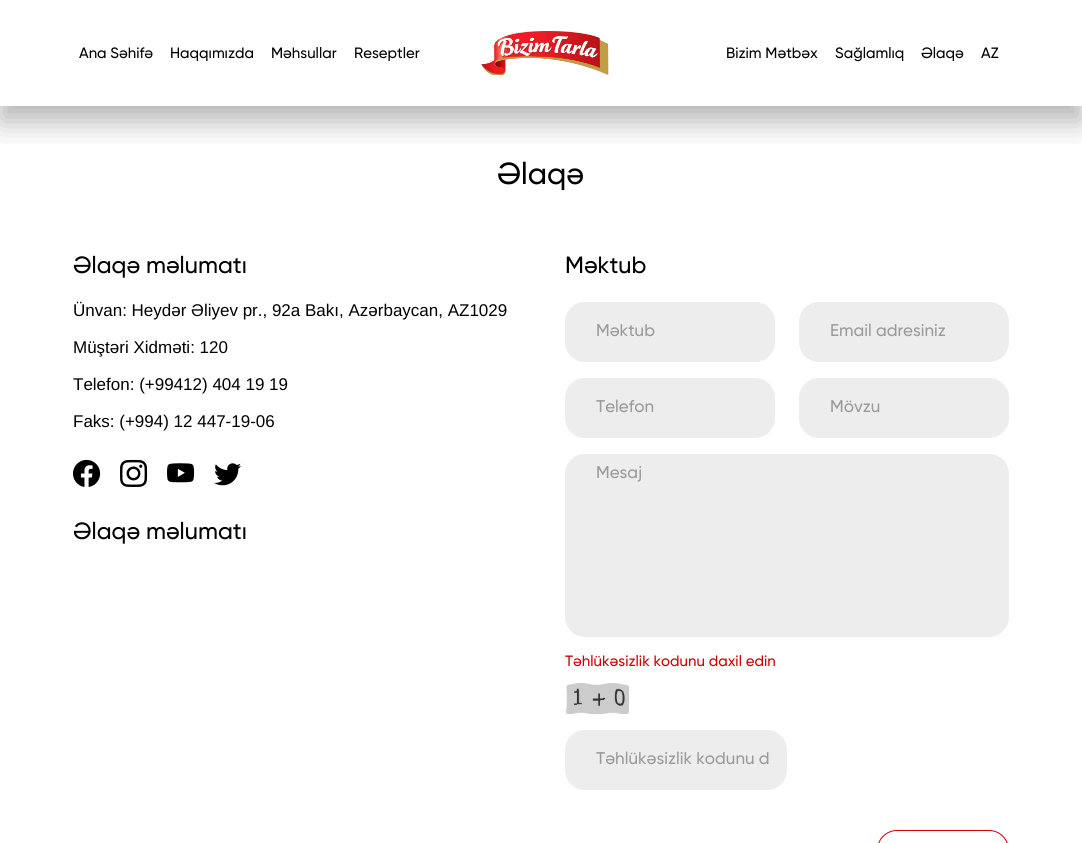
#include <cairo/cairo.h>
#include <math.h>
#include <stddef.h>

typedef struct { double x, y; const char *s; } line_t;
static cairo_t *cr;

static void rgb(unsigned color)
{
	cairo_set_source_rgb(cr, (color >> 16) / 255.0, (color >> 8 & 255) / 255.0, (color & 255) / 255.0);
}

static void rrect(double x, double y, double w, double h, double r)
{
	cairo_new_sub_path(cr);
	cairo_arc(cr, x + w - r, y + h - r, r, 0, M_PI / 2);
	cairo_arc(cr, x + r, y + h - r, r, M_PI / 2, M_PI);
	cairo_arc(cr, x + r, y + r, r, M_PI, 1.5 * M_PI);
	cairo_arc(cr, x + w - r, y + r, r, 1.5 * M_PI, 2 * M_PI);
	cairo_close_path(cr);
}

static void soft_shadow(double x, double y, double w, double h, double r, double blur, double alpha)
{
	cairo_push_group_with_content(cr, CAIRO_CONTENT_ALPHA);
	cairo_set_operator(cr, CAIRO_OPERATOR_SOURCE);
	for (int i = 15; i >= -15 && fmin(w, h) + blur * i / 3 > 0; i -= 2) {
		double e = blur * i / 6;
		cairo_set_source_rgba(cr, 0, 0, 0, alpha * erfc((i - 1) / 8.5) / 2);
		rrect(x - e, y - e, w + 2 * e, h + 2 * e, fmax(0, fmin(r + e + blur * .6, fmin(w, h) / 2 + e)));
		cairo_fill(cr);
	}
	cairo_pattern_t *soft = cairo_pop_group(cr);
	cairo_mask(cr, soft);
	cairo_pattern_destroy(soft);
}

static void image(const char *path, double x, double y, double w, double h)
{
	cairo_surface_t *image = cairo_image_surface_create_from_png(path);
	cairo_save(cr);
	cairo_set_source_surface(cr, image, x, y);
	cairo_rectangle(cr, x, y, w, h);
	cairo_fill(cr);
	cairo_restore(cr);
	cairo_surface_destroy(image);
}

int main(void) {
	cairo_surface_t *surface = cairo_image_surface_create(CAIRO_FORMAT_RGB24, 1082, 843);
	cr = cairo_create(surface);
	cairo_font_options_t *options = cairo_font_options_create();
	cairo_font_options_set_hint_metrics(options, CAIRO_HINT_METRICS_OFF);
	cairo_font_options_set_hint_style(options, CAIRO_HINT_STYLE_NONE);
	cairo_set_font_options(cr, options);
	cairo_set_miter_limit(cr, 4);
	rgb(0xffffff);
	cairo_paint(cr);
	cairo_save(cr);
	cairo_rectangle(cr, 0, 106, 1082, 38);
	cairo_clip(cr);
	rgb(0x000000);
	soft_shadow(0, 15, 1082, 106, 0, 15, 0.3);
	cairo_restore(cr);
	image("img/1.png", 481, 31, 128, 44);
	image("img/2.png", 73, 459, 28, 28);
	image("img/3.png", 120, 459, 28, 28);
	image("img/4.png", 167, 463, 28, 20);
	image("img/5.png", 214, 463, 27, 23);
	rgb(0xededed);
	rrect(565.5, 302.5, 209, 59, 19.5);
	cairo_fill_preserve(cr);
	cairo_set_line_width(cr, 1);
	cairo_stroke(cr);
	rrect(799.5, 302.5, 209, 59, 19.5);
	cairo_fill_preserve(cr);
	cairo_stroke(cr);
	rrect(565.5, 378.5, 209, 59, 19.5);
	cairo_fill_preserve(cr);
	cairo_stroke(cr);
	rrect(799.5, 378.5, 209, 59, 19.5);
	cairo_fill_preserve(cr);
	cairo_stroke(cr);
	rrect(565.5, 454.5, 443, 182, 19.5);
	cairo_fill_preserve(cr);
	cairo_stroke(cr);
	image("img/6.png", 565, 683, 64, 31);
	rrect(565.5, 730.5, 221, 59, 19.5);
	cairo_fill_preserve(cr);
	cairo_stroke(cr);
	rrect(877.5, 830.5, 131, 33, 19.5);
	rgb(0xce0002);
	cairo_stroke(cr);
	cairo_select_font_face(cr, "Gilroy Medium", CAIRO_FONT_SLANT_NORMAL, CAIRO_FONT_WEIGHT_NORMAL);
	cairo_set_font_size(cr, 15);
	rgb(0x000000);
	{
		static const line_t items[] = {
			{79, 58, "Ana Səhifə"},
			{170, 58, "Haqqımızda"},
			{271, 58, "Məhsullar"},
			{354, 58, "Reseptler"},
			{726, 58, "Bizim Mətbəx"},
			{835, 58, "Sağlamlıq"},
			{921, 58, "Əlaqə"},
			{981, 58, "AZ"},
		};
		for (size_t i = 0; i < sizeof items / sizeof *items; i++) {
			cairo_move_to(cr, items[i].x, items[i].y);
			cairo_show_text(cr, items[i].s);
		}
	}
	cairo_set_font_size(cr, 30.5);
	cairo_move_to(cr, 497, 184);
	cairo_show_text(cr, "Əlaqə");
	cairo_set_font_size(cr, 23.5);
	cairo_move_to(cr, 73, 273);
	cairo_show_text(cr, "Əlaqə məlumatı");
	cairo_select_font_face(cr, "Liberation Sans", CAIRO_FONT_SLANT_NORMAL, CAIRO_FONT_WEIGHT_NORMAL);
	cairo_set_font_size(cr, 17);
	{
		static const line_t items[] = {
			{73, 316, "Ünvan: Heydər Əliyev pr., 92a Bakı, Azərbaycan, AZ1029"},
			{73, 353, "Müştəri Xidməti: 120"},
			{73, 390, "Telefon: (+99412) 404 19 19"},
			{73, 427, "Faks: (+994) 12 447-19-06"},
		};
		for (size_t i = 0; i < sizeof items / sizeof *items; i++) {
			cairo_move_to(cr, items[i].x, items[i].y);
			cairo_show_text(cr, items[i].s);
		}
	}
	cairo_select_font_face(cr, "Gilroy Medium", CAIRO_FONT_SLANT_NORMAL, CAIRO_FONT_WEIGHT_NORMAL);
	cairo_set_font_size(cr, 23.5);
	cairo_move_to(cr, 73, 539);
	cairo_show_text(cr, "Əlaqə məlumatı");
	cairo_move_to(cr, 565, 273);
	cairo_show_text(cr, "Məktub");
	cairo_set_font_size(cr, 17);
	rgb(0x9a9a9a);
	{
		static const line_t items[] = {
			{596, 336, "Məktub"},
			{830, 336, "Email adresiniz"},
			{596, 412, "Telefon"},
			{830, 412, "Mövzu"},
			{596, 478, "Mesaj"},
		};
		for (size_t i = 0; i < sizeof items / sizeof *items; i++) {
			cairo_move_to(cr, items[i].x, items[i].y);
			cairo_show_text(cr, items[i].s);
		}
	}
	cairo_set_font_size(cr, 15);
	rgb(0xce0002);
	cairo_move_to(cr, 565, 666);
	cairo_show_text(cr, "Təhlükəsizlik kodunu daxil edin");
	cairo_set_font_size(cr, 17);
	rgb(0x9a9a9a);
	cairo_move_to(cr, 596, 764);
	cairo_show_text(cr, "Təhlükəsizlik kodunu d");
	cairo_surface_write_to_png(surface, "page.png");
	cairo_font_options_destroy(options);
	cairo_destroy(cr);
	cairo_surface_destroy(surface);
	return 0;
}
